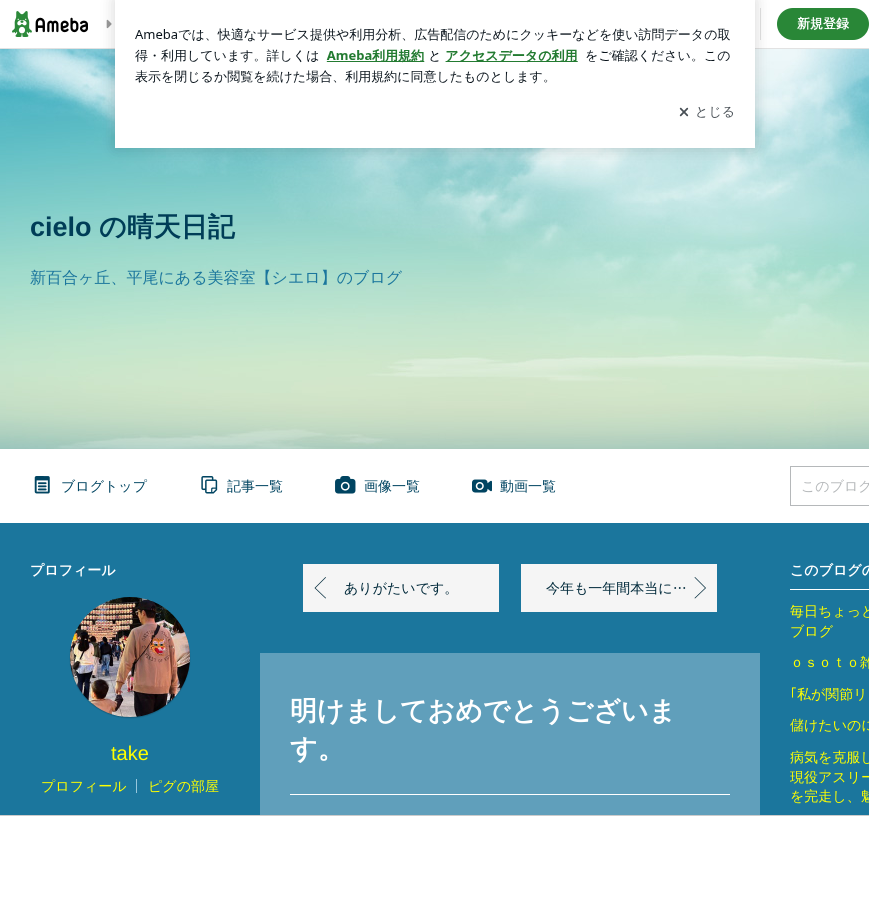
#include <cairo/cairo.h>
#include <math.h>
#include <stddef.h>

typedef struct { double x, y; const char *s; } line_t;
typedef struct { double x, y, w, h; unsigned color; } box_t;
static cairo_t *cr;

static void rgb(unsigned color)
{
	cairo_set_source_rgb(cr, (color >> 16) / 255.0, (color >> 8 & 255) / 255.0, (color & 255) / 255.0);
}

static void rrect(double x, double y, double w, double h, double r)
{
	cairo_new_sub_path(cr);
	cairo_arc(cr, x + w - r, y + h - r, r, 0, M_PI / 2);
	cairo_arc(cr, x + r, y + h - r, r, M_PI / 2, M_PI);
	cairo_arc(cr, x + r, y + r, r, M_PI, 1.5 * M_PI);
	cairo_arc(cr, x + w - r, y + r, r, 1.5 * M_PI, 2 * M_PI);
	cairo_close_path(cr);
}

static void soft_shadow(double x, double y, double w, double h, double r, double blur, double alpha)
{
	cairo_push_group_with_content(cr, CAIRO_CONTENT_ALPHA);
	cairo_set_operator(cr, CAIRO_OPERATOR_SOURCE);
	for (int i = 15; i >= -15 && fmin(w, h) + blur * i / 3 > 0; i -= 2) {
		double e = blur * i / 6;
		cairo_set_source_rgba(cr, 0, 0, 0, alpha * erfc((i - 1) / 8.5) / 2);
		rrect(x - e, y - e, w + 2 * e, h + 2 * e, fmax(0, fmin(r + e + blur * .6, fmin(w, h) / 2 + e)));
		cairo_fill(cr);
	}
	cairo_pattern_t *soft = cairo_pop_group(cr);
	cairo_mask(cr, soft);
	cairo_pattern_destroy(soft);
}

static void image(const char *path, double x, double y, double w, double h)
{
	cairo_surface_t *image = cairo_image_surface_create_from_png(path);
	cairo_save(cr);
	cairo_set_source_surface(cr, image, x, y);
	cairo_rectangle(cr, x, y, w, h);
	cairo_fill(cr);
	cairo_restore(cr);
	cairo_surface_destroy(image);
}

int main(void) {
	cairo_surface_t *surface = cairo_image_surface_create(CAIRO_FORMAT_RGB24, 869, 906);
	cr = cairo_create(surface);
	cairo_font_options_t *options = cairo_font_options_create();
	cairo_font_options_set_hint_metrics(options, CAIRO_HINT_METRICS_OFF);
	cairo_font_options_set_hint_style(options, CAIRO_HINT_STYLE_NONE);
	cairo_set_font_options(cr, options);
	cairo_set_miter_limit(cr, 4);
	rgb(0x1b769d);
	cairo_paint(cr);
	rgb(0xffffff);
	cairo_rectangle(cr, 0, 0, 869, 48);
	cairo_fill(cr);
	rgb(0xe2e2e2);
	cairo_rectangle(cr, 0, 48, 869, 1);
	cairo_fill(cr);
	image("img/3.png", 106, 19, 6, 10);
	cairo_rectangle(cr, 760, 8, 1, 32);
	cairo_fill(cr);
	rgb(0x298737);
	rrect(777, 8, 92, 32, 16);
	cairo_fill(cr);
	image("img/4.png", 0, 49, 869, 400);
	cairo_save(cr);
	cairo_set_fill_rule(cr, CAIRO_FILL_RULE_EVEN_ODD);
	cairo_new_path(cr);
	cairo_move_to(cr, 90, 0);
	cairo_line_to(cr, 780, 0);
	cairo_line_to(cr, 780, 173);
	cairo_line_to(cr, 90, 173);
	cairo_close_path(cr);
	cairo_move_to(cr, 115, 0);
	cairo_line_to(cr, 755, 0);
	cairo_line_to(cr, 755, 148);
	cairo_line_to(cr, 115, 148);
	cairo_close_path(cr);
	cairo_clip(cr);
	rgb(0x000000);
	soft_shadow(115, 0, 640, 148, 0, 8, 0.16);
	cairo_restore(cr);
	image("img/1.png", 115, 16, 640, 132);
	image("img/2.png", 12, 11, 76, 26);
	rgb(0xffffff);
	cairo_rectangle(cr, 0, 449, 869, 74);
	cairo_fill(cr);
	image("img/5.png", 34, 476, 16, 18);
	image("img/6.png", 201, 476, 17, 18);
	image("img/7.png", 335, 476, 21, 18);
	image("img/8.png", 472, 479, 20, 14);
	cairo_rectangle(cr, 790.5, 466.5, 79, 39);
	rgb(0xb5b8ba);
	cairo_set_line_width(cr, 1);
	cairo_stroke(cr);
	rgb(0x000000);
	soft_shadow(70, 598, 120, 120, 60, 0.5, 0.2);
	image("img/9.png", 70, 597, 120, 120);
	rgb(0x96c7dd);
	cairo_rectangle(cr, 136, 779, 1, 14);
	cairo_fill(cr);
	rgb(0xf5f5f5);
	cairo_rectangle(cr, 303, 564, 196, 48);
	cairo_fill(cr);
	rgb(0x00293a);
	cairo_new_path(cr);
	cairo_move_to(cr, 315.5, 588);
	cairo_line_to(cr, 326, 577.5);
	cairo_line_to(cr, 325.5, 577);
	cairo_line_to(cr, 314.5, 588);
	cairo_line_to(cr, 325.5, 598.5);
	cairo_line_to(cr, 326, 598);
	cairo_close_path(cr);
	cairo_fill(cr);
	rgb(0xf5f5f5);
	cairo_rectangle(cr, 521, 564, 196, 48);
	cairo_fill(cr);
	rgb(0x00293a);
	cairo_new_path(cr);
	cairo_move_to(cr, 705, 588);
	cairo_line_to(cr, 694.5, 577.5);
	cairo_line_to(cr, 695, 577);
	cairo_line_to(cr, 706, 588);
	cairo_line_to(cr, 695, 598.5);
	cairo_line_to(cr, 694.5, 598);
	cairo_close_path(cr);
	cairo_fill(cr);
	{
		static const box_t items[] = {
			{260, 653, 500, 162, 0x609fbb},
			{290, 794, 440, 1, 0xffffff},
			{790, 589, 79, 1, 0xffffff},
			{0, 816, 869, 90, 0xffffff},
			{0, 815, 869, 1, 0xcccccc},
		};
		for (size_t i = 0; i < sizeof items / sizeof *items; i++) {
			rgb(items[i].color);
			cairo_rectangle(cr, items[i].x, items[i].y, items[i].w, items[i].h);
			cairo_fill(cr);
		}
	}
	cairo_select_font_face(cr, "WenQuanYi Zen Hei", CAIRO_FONT_SLANT_NORMAL, CAIRO_FONT_WEIGHT_BOLD);
	cairo_set_font_size(cr, 13);
	rgb(0xffffff);
	cairo_move_to(cr, 797, 28);
	cairo_show_text(cr, "新規登録");
	cairo_select_font_face(cr, "Liberation Sans", CAIRO_FONT_SLANT_NORMAL, CAIRO_FONT_WEIGHT_BOLD);
	cairo_set_font_size(cr, 27);
	rgb(0x003d57);
	cairo_move_to(cr, 30, 236);
	cairo_show_text(cr, "cielo");
	cairo_select_font_face(cr, "WenQuanYi Zen Hei", CAIRO_FONT_SLANT_NORMAL, CAIRO_FONT_WEIGHT_BOLD);
	cairo_move_to(cr, 99, 236);
	cairo_show_text(cr, "の晴天日記");
	cairo_select_font_face(cr, "WenQuanYi Zen Hei Medium", CAIRO_FONT_SLANT_NORMAL, CAIRO_FONT_WEIGHT_NORMAL);
	cairo_set_font_size(cr, 16);
	rgb(0x1b769d);
	cairo_move_to(cr, 30, 283);
	cairo_show_text(cr, "新百合ヶ丘、平尾にある美容室【シエロ】のブログ");
	cairo_set_font_size(cr, 14);
	rgb(0x004461);
	{
		static const line_t items[] = {
			{61, 491, "ブログトップ"},
			{227, 491, "記事一覧"},
			{364, 491, "画像一覧"},
			{500, 491, "動画一覧"},
		};
		for (size_t i = 0; i < sizeof items / sizeof *items; i++) {
			cairo_move_to(cr, items[i].x, items[i].y);
			cairo_show_text(cr, items[i].s);
		}
	}
	rgb(0xb5b8ba);
	cairo_move_to(cr, 801, 491);
	cairo_show_text(cr, "このブログ");
	cairo_select_font_face(cr, "WenQuanYi Zen Hei", CAIRO_FONT_SLANT_NORMAL, CAIRO_FONT_WEIGHT_BOLD);
	rgb(0xffffff);
	cairo_move_to(cr, 30, 575);
	cairo_show_text(cr, "プロフィール");
	cairo_select_font_face(cr, "Liberation Sans", CAIRO_FONT_SLANT_NORMAL, CAIRO_FONT_WEIGHT_NORMAL);
	cairo_set_font_size(cr, 20);
	rgb(0xffff00);
	cairo_move_to(cr, 111, 760);
	cairo_show_text(cr, "take");
	cairo_select_font_face(cr, "WenQuanYi Zen Hei Medium", CAIRO_FONT_SLANT_NORMAL, CAIRO_FONT_WEIGHT_NORMAL);
	cairo_set_font_size(cr, 14);
	cairo_move_to(cr, 41, 791);
	cairo_show_text(cr, "プロフィール");
	cairo_move_to(cr, 148, 791);
	cairo_show_text(cr, "ピグの部屋");
	rgb(0x00293a);
	cairo_move_to(cr, 344, 593);
	cairo_show_text(cr, "ありがたいです。");
	cairo_move_to(cr, 546, 593);
	cairo_show_text(cr, "今年も一年間本当に…");
	cairo_select_font_face(cr, "WenQuanYi Zen Hei", CAIRO_FONT_SLANT_NORMAL, CAIRO_FONT_WEIGHT_BOLD);
	cairo_set_font_size(cr, 27);
	rgb(0xffffff);
	cairo_move_to(cr, 290, 720);
	cairo_show_text(cr, "明けましておめでとうございま");
	cairo_move_to(cr, 290, 758);
	cairo_show_text(cr, "す。");
	cairo_set_font_size(cr, 14);
	cairo_move_to(cr, 790, 575);
	cairo_show_text(cr, "このブログの");
	cairo_select_font_face(cr, "WenQuanYi Zen Hei Medium", CAIRO_FONT_SLANT_NORMAL, CAIRO_FONT_WEIGHT_NORMAL);
	rgb(0xffff00);
	{
		static const line_t items[] = {
			{790, 616, "毎日ちょっと"},
			{790, 636, "ブログ"},
			{790, 667, "ｏｓｏｔｏ雑"},
		};
		for (size_t i = 0; i < sizeof items / sizeof *items; i++) {
			cairo_move_to(cr, items[i].x, items[i].y);
			cairo_show_text(cr, items[i].s);
		}
	}
	cairo_select_font_face(cr, "IPAPGothic", CAIRO_FONT_SLANT_NORMAL, CAIRO_FONT_WEIGHT_NORMAL);
	cairo_move_to(cr, 790, 699);
	cairo_show_text(cr, "｢");
	cairo_select_font_face(cr, "WenQuanYi Zen Hei Medium", CAIRO_FONT_SLANT_NORMAL, CAIRO_FONT_WEIGHT_NORMAL);
	{
		static const line_t items[] = {
			{797, 699, "私が関節リ"},
			{790, 730, "儲けたいのに"},
			{790, 762, "病気を克服し"},
			{790, 782, "現役アスリー"},
			{790, 801, "を完走し、魅"},
		};
		for (size_t i = 0; i < sizeof items / sizeof *items; i++) {
			cairo_move_to(cr, items[i].x, items[i].y);
			cairo_show_text(cr, items[i].s);
		}
	}
	cairo_surface_write_to_png(surface, "page.png");
	cairo_font_options_destroy(options);
	cairo_destroy(cr);
	cairo_surface_destroy(surface);
	return 0;
}
